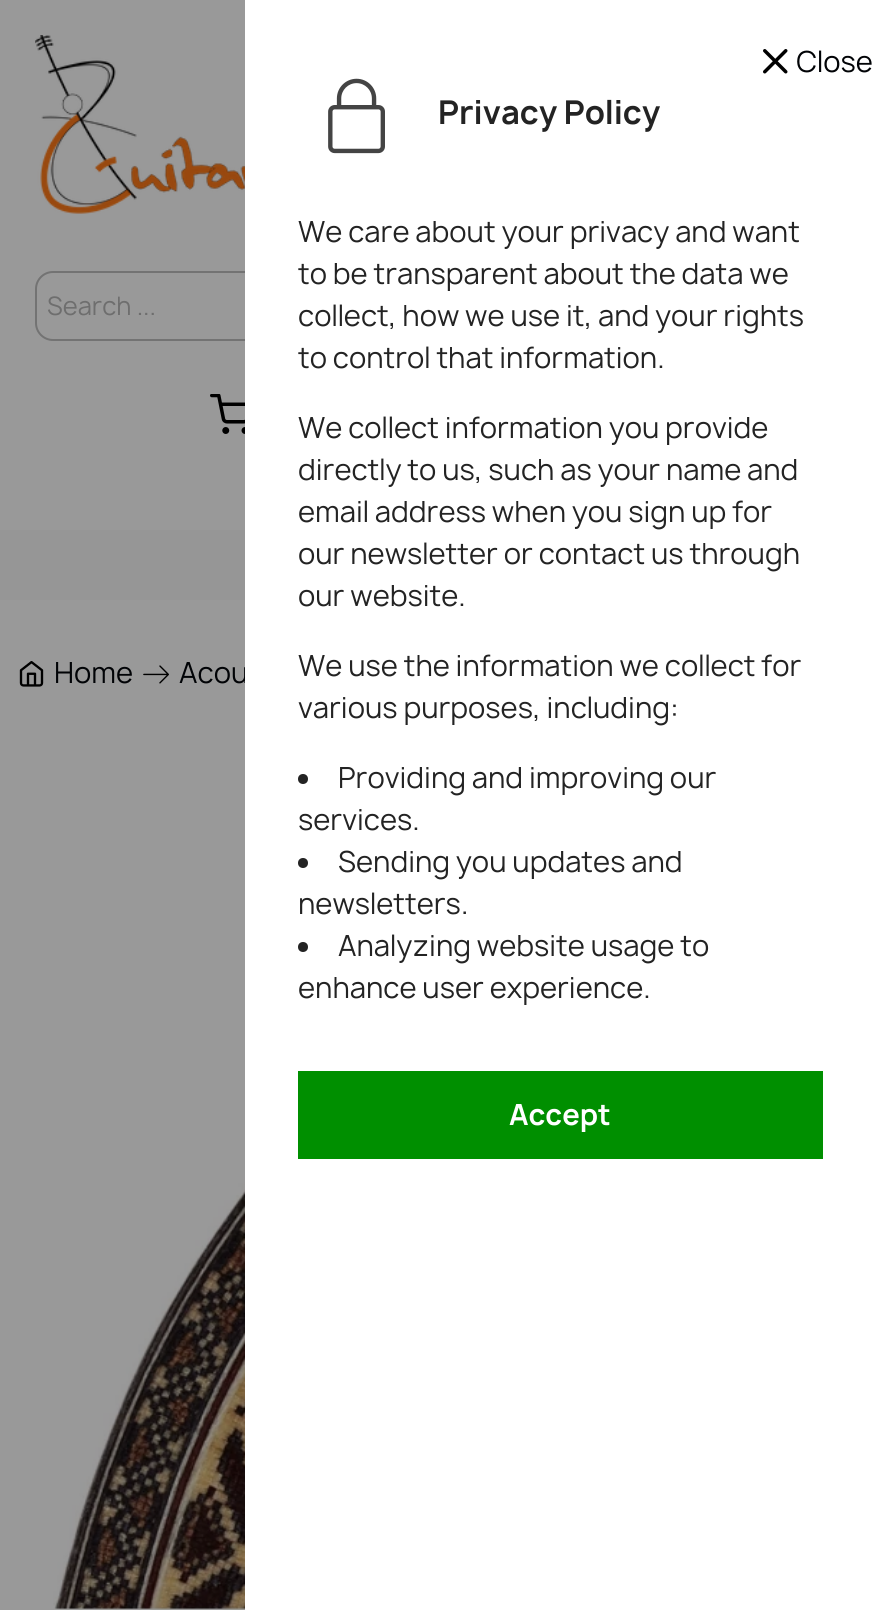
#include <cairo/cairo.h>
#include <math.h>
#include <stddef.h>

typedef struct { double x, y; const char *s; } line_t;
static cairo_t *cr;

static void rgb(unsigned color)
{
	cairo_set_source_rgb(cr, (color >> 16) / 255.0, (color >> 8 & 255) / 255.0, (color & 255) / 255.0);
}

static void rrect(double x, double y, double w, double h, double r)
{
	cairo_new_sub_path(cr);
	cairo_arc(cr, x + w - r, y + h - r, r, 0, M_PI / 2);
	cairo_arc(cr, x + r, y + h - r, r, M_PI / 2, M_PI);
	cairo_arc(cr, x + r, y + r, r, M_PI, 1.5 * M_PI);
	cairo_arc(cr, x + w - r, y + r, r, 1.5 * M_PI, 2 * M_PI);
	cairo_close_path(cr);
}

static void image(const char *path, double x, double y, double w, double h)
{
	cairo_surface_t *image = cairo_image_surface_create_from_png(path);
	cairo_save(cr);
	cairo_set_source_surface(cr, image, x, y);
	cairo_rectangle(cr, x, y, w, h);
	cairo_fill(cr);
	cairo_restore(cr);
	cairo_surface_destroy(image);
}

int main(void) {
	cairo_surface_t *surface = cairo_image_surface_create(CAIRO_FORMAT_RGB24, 874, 1610);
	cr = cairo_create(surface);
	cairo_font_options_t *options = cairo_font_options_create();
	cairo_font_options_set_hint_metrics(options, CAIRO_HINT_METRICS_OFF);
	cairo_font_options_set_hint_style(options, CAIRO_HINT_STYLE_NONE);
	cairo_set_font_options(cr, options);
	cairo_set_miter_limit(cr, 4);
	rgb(0x999999);
	cairo_paint(cr);
	image("img/1.png", 35, 35, 210, 179);
	rrect(36, 272, 665, 68, 17);
	rgb(0x737373);
	cairo_stroke(cr);
	image("img/2.png", 210, 394, 35, 40);
	rgb(0x969696);
	cairo_rectangle(cr, 0, 530, 245, 70);
	cairo_fill(cr);
	image("img/3.png", 19, 661, 25, 26);
	image("img/4.png", 143, 665, 26, 19);
	image("img/5.png", 53, 816, 192, 794);
	cairo_select_font_face(cr, "Manrope", CAIRO_FONT_SLANT_NORMAL, CAIRO_FONT_WEIGHT_NORMAL);
	cairo_set_font_size(cr, 24.5);
	rgb(0x6e6e6e);
	cairo_move_to(cr, 47, 315);
	cairo_show_text(cr, "Search ...");
	cairo_set_font_size(cr, 28);
	rgb(0x010306);
	cairo_move_to(cr, 54, 683);
	cairo_show_text(cr, "Home");
	cairo_move_to(cr, 179, 683);
	cairo_show_text(cr, "Acou");
	rgb(0xffffff);
	cairo_rectangle(cr, 245, 0, 629, 1610);
	cairo_fill(cr);
	image("img/6.png", 763, 49, 25, 25);
	rgb(0x010306);
	cairo_move_to(cr, 796, 72);
	cairo_show_text(cr, "Close");
	image("img/7.png", 328, 78, 57, 76);
	cairo_select_font_face(cr, "Manrope", CAIRO_FONT_SLANT_NORMAL, CAIRO_FONT_WEIGHT_BOLD);
	cairo_set_font_size(cr, 31.5);
	rgb(0x232323);
	cairo_move_to(cr, 438, 124);
	cairo_show_text(cr, "Privacy Policy");
	cairo_select_font_face(cr, "Manrope", CAIRO_FONT_SLANT_NORMAL, CAIRO_FONT_WEIGHT_NORMAL);
	cairo_set_font_size(cr, 28);
	{
		static const line_t items[] = {
			{298, 242, "We care about your privacy and want"},
			{298, 284, "to be transparent about the data we"},
			{298, 326, "collect, how we use it, and your rights"},
			{298, 368, "to control that information."},
			{298, 438, "We collect information you provide"},
			{298, 480, "directly to us, such as your name and"},
			{298, 522, "email address when you sign up for"},
			{298, 564, "our newsletter or contact us through"},
			{298, 606, "our website."},
			{298, 676, "We use the information we collect for"},
			{298, 718, "various purposes, including:"},
		};
		for (size_t i = 0; i < sizeof items / sizeof *items; i++) {
			cairo_move_to(cr, items[i].x, items[i].y);
			cairo_show_text(cr, items[i].s);
		}
	}
	cairo_new_path(cr);
	cairo_arc(cr, 303, 779, 5, 0, 2 * M_PI);
	cairo_fill(cr);
	cairo_move_to(cr, 338, 788);
	cairo_show_text(cr, "Providing and improving our");
	cairo_move_to(cr, 298, 830);
	cairo_show_text(cr, "services.");
	cairo_new_path(cr);
	cairo_arc(cr, 303, 863, 5, 0, 2 * M_PI);
	cairo_fill(cr);
	cairo_move_to(cr, 338, 872);
	cairo_show_text(cr, "Sending you updates and");
	cairo_move_to(cr, 298, 914);
	cairo_show_text(cr, "newsletters.");
	cairo_new_path(cr);
	cairo_arc(cr, 303, 947, 5, 0, 2 * M_PI);
	cairo_fill(cr);
	cairo_move_to(cr, 338, 956);
	cairo_show_text(cr, "Analyzing website usage to");
	cairo_move_to(cr, 298, 998);
	cairo_show_text(cr, "enhance user experience.");
	rgb(0x008f00);
	cairo_rectangle(cr, 298, 1071, 525, 88);
	cairo_fill(cr);
	cairo_select_font_face(cr, "Manrope", CAIRO_FONT_SLANT_NORMAL, CAIRO_FONT_WEIGHT_BOLD);
	rgb(0xffffff);
	cairo_move_to(cr, 509, 1125);
	cairo_show_text(cr, "Accept");
	cairo_surface_write_to_png(surface, "page.png");
	cairo_font_options_destroy(options);
	cairo_destroy(cr);
	cairo_surface_destroy(surface);
	return 0;
}
